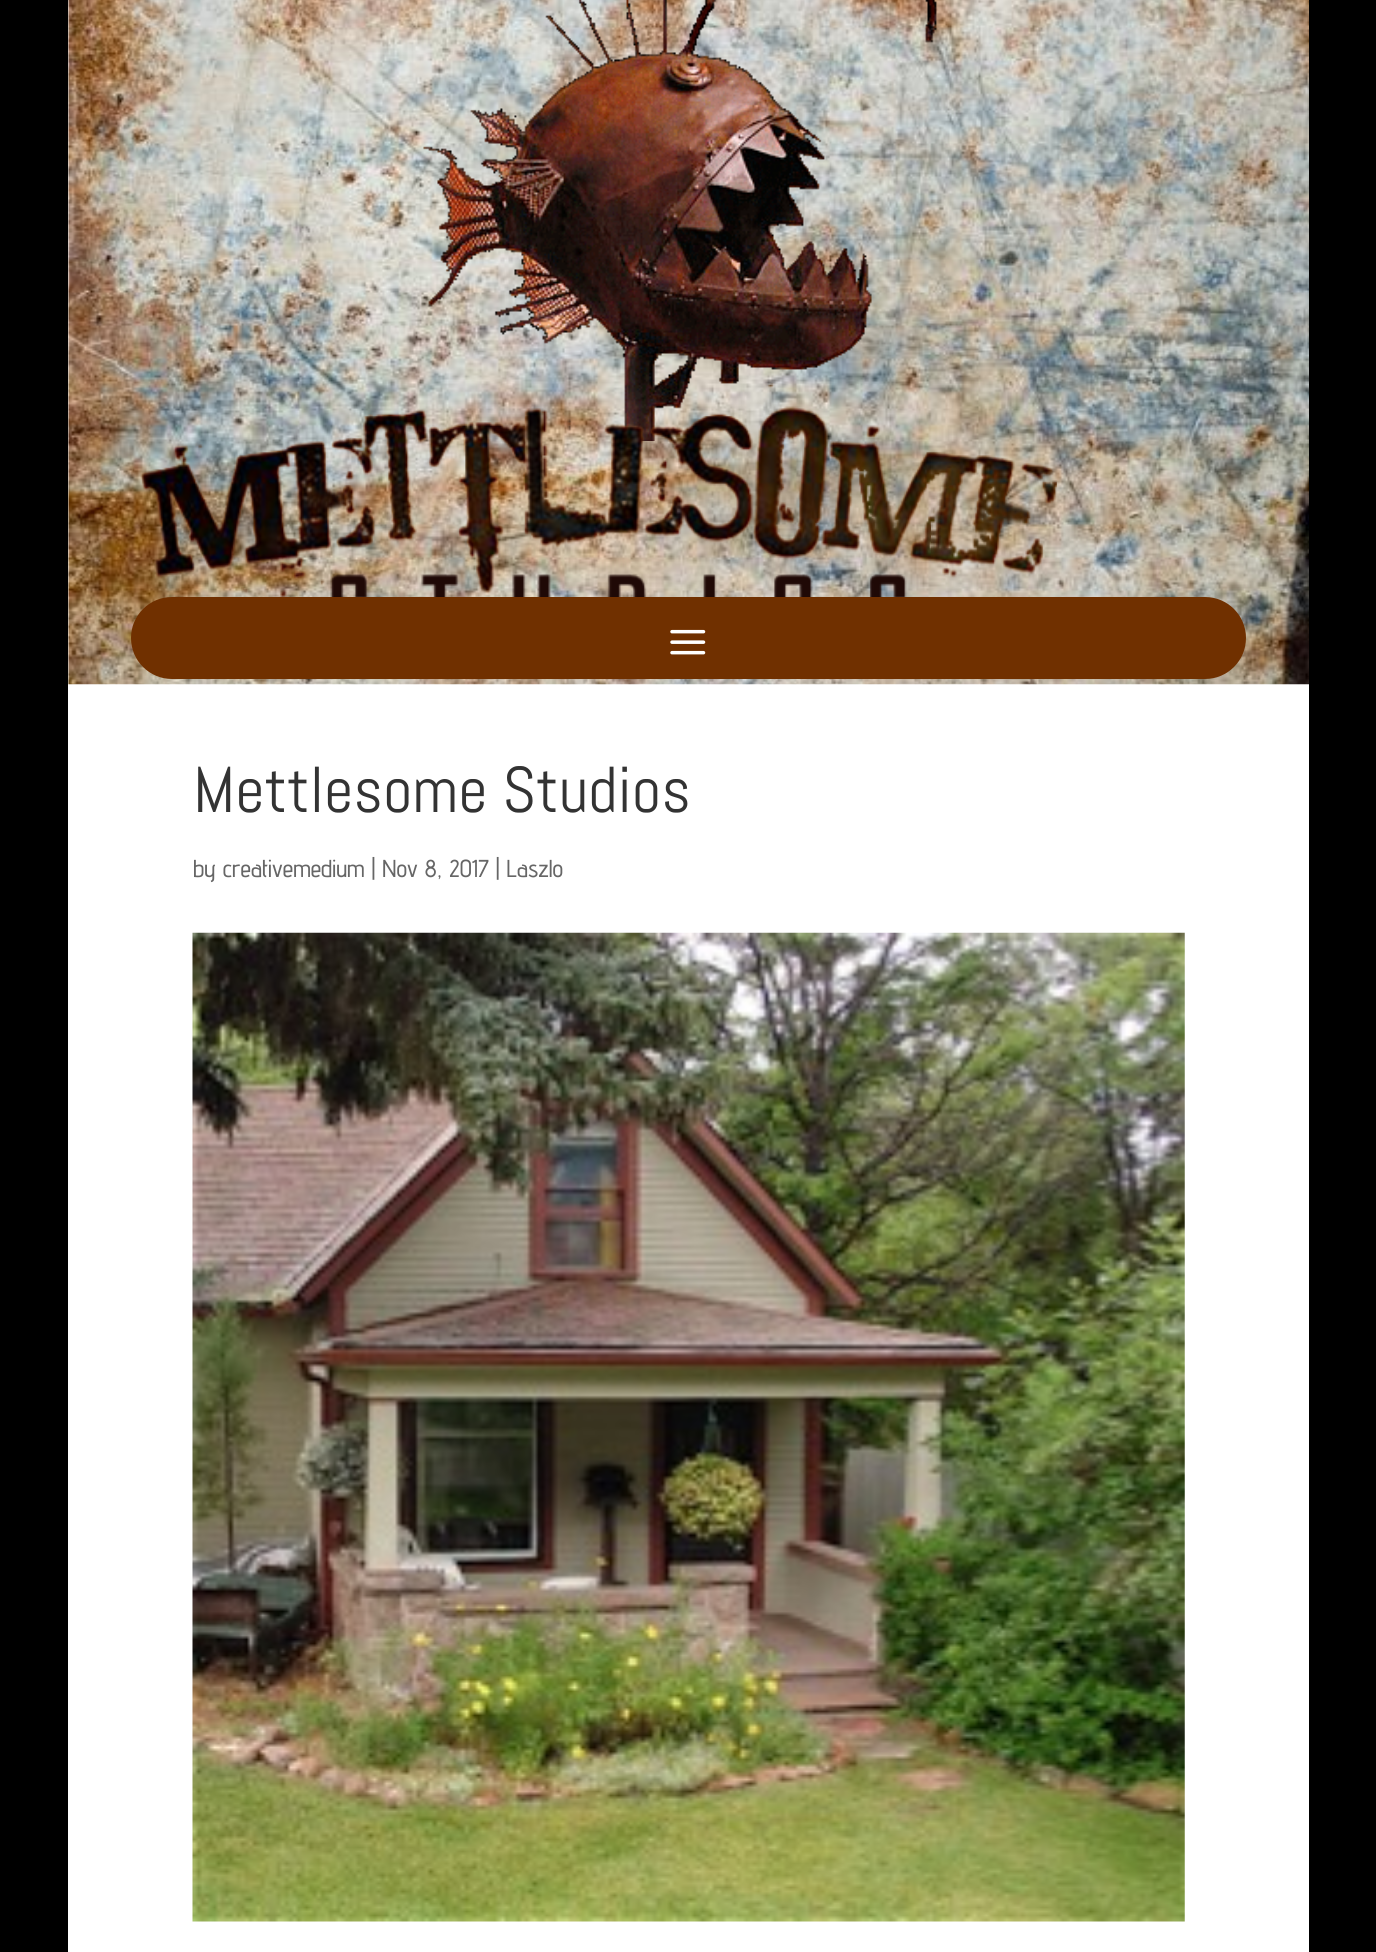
#include <cairo/cairo.h>
#include <math.h>
#include <stddef.h>

static cairo_t *cr;

static void rgb(unsigned color)
{
	cairo_set_source_rgb(cr, (color >> 16) / 255.0, (color >> 8 & 255) / 255.0, (color & 255) / 255.0);
}

static void rrect(double x, double y, double w, double h, double r)
{
	cairo_new_sub_path(cr);
	cairo_arc(cr, x + w - r, y + h - r, r, 0, M_PI / 2);
	cairo_arc(cr, x + r, y + h - r, r, M_PI / 2, M_PI);
	cairo_arc(cr, x + r, y + r, r, M_PI, 1.5 * M_PI);
	cairo_arc(cr, x + w - r, y + r, r, 1.5 * M_PI, 2 * M_PI);
	cairo_close_path(cr);
}

static void image(const char *path, double x, double y, double w, double h)
{
	cairo_surface_t *image = cairo_image_surface_create_from_png(path);
	cairo_save(cr);
	cairo_set_source_surface(cr, image, x, y);
	cairo_rectangle(cr, x, y, w, h);
	cairo_fill(cr);
	cairo_restore(cr);
	cairo_surface_destroy(image);
}

int main(void) {
	cairo_surface_t *surface = cairo_image_surface_create(CAIRO_FORMAT_RGB24, 1376, 1952);
	cr = cairo_create(surface);
	cairo_font_options_t *options = cairo_font_options_create();
	cairo_font_options_set_hint_metrics(options, CAIRO_HINT_METRICS_OFF);
	cairo_font_options_set_hint_style(options, CAIRO_HINT_STYLE_NONE);
	cairo_set_font_options(cr, options);
	cairo_set_miter_limit(cr, 4);
	rgb(0x000000);
	cairo_paint(cr);
	rgb(0xffffff);
	cairo_rectangle(cr, 68, 0, 1, 684);
	cairo_fill(cr);
	cairo_rectangle(cr, 68, 684, 1241, 1268);
	cairo_fill(cr);
	image("img/1.png", 68, 0, 1241, 685);
	image("img/2.png", 423, 0, 514, 441);
	image("img/3.png", 131, 383, 926, 214);
	rgb(0x703000);
	rrect(131, 597, 1115, 82, 41);
	cairo_fill(cr);
	image("img/4.png", 670, 629, 36, 26);
	image("img/5.png", 192, 932, 993, 990);
	cairo_select_font_face(cr, "Abel", CAIRO_FONT_SLANT_NORMAL, CAIRO_FONT_WEIGHT_NORMAL);
	cairo_set_font_size(cr, 64.75);
	rgb(0x333333);
	cairo_move_to(cr, 193, 812);
	cairo_show_text(cr, "Mettlesome Studios");
	cairo_select_font_face(cr, "Advent Pro Medium", CAIRO_FONT_SLANT_NORMAL, CAIRO_FONT_WEIGHT_NORMAL);
	cairo_set_font_size(cr, 24.5);
	rgb(0x666666);
	cairo_move_to(cr, 193, 877);
	cairo_show_text(cr, "by creativemedium | Nov 8, 2017 | Laszlo");
	cairo_surface_write_to_png(surface, "page.png");
	cairo_font_options_destroy(options);
	cairo_destroy(cr);
	cairo_surface_destroy(surface);
	return 0;
}
